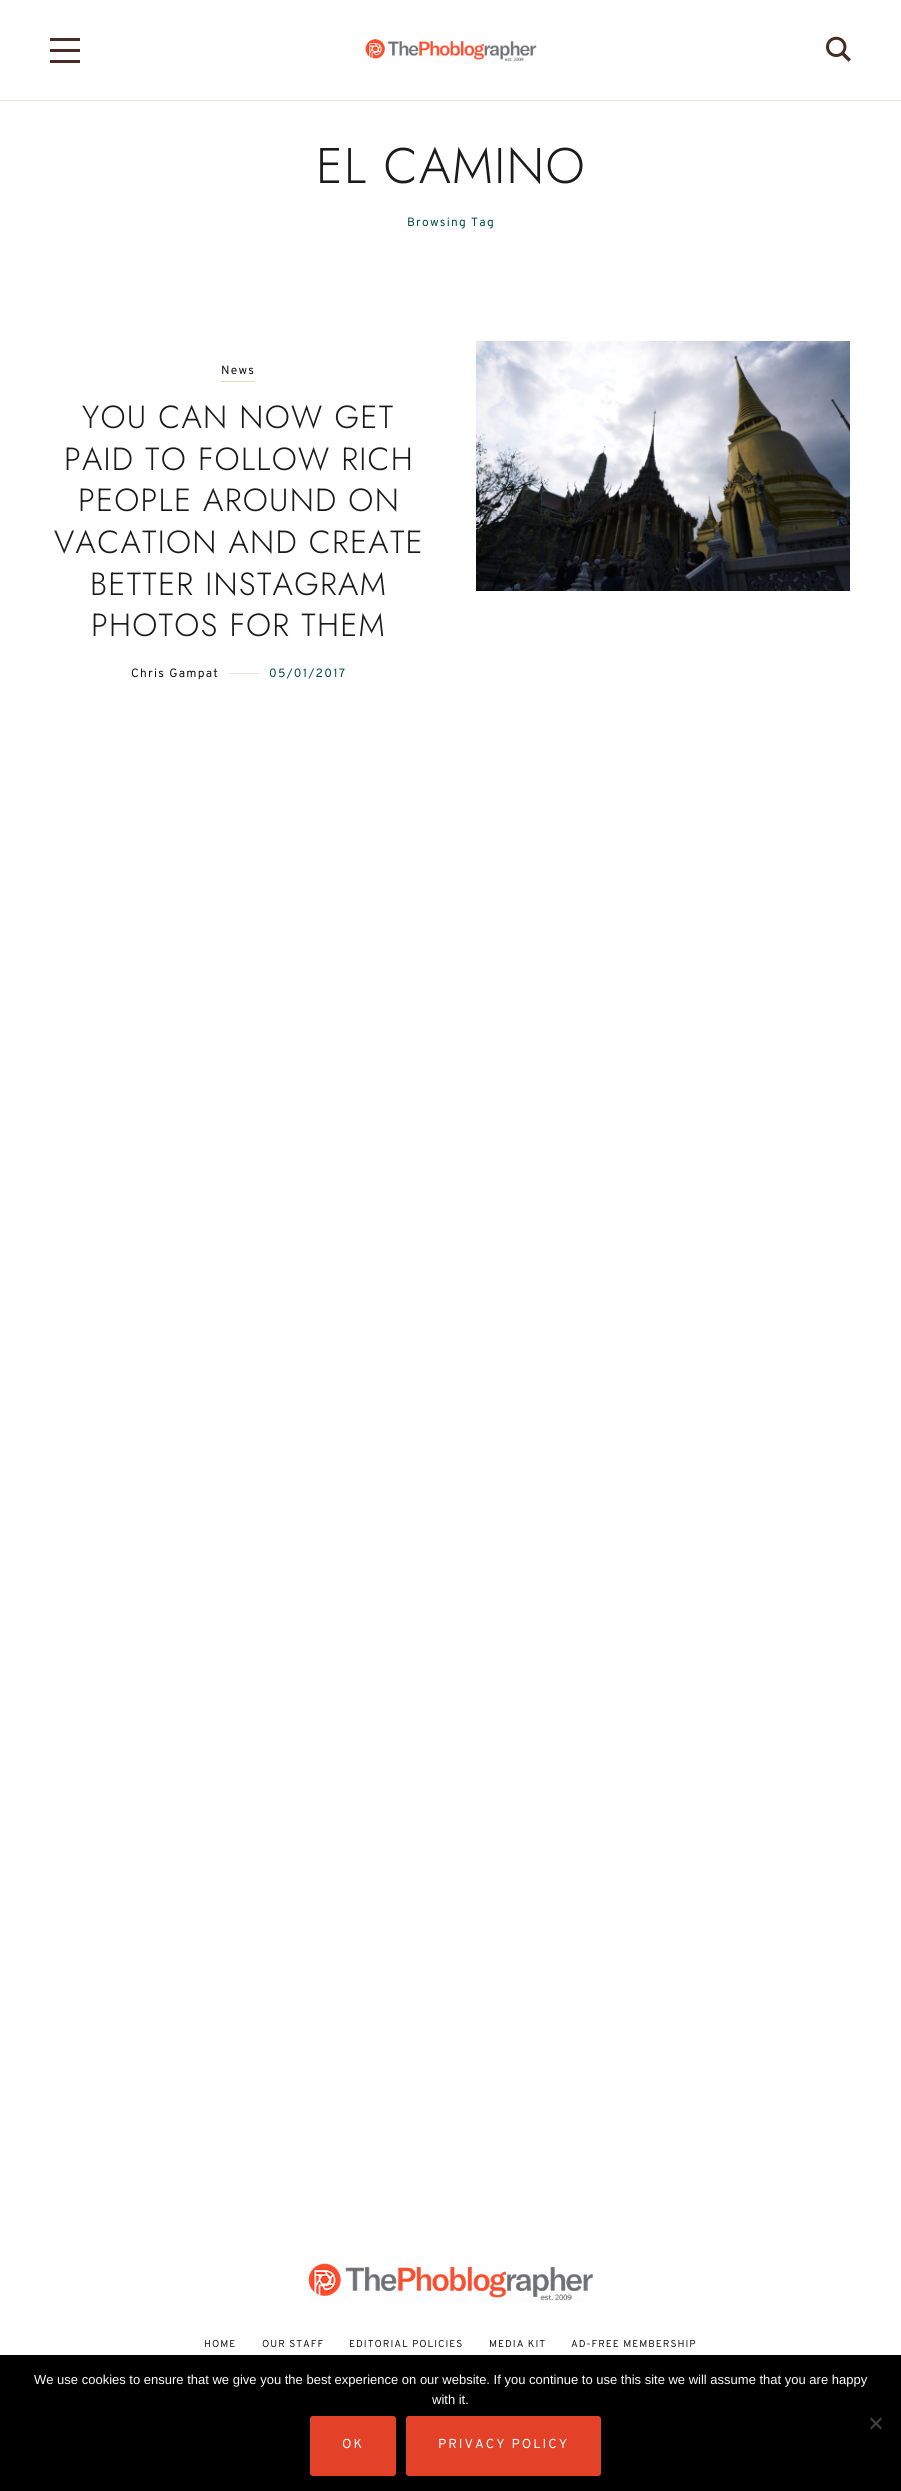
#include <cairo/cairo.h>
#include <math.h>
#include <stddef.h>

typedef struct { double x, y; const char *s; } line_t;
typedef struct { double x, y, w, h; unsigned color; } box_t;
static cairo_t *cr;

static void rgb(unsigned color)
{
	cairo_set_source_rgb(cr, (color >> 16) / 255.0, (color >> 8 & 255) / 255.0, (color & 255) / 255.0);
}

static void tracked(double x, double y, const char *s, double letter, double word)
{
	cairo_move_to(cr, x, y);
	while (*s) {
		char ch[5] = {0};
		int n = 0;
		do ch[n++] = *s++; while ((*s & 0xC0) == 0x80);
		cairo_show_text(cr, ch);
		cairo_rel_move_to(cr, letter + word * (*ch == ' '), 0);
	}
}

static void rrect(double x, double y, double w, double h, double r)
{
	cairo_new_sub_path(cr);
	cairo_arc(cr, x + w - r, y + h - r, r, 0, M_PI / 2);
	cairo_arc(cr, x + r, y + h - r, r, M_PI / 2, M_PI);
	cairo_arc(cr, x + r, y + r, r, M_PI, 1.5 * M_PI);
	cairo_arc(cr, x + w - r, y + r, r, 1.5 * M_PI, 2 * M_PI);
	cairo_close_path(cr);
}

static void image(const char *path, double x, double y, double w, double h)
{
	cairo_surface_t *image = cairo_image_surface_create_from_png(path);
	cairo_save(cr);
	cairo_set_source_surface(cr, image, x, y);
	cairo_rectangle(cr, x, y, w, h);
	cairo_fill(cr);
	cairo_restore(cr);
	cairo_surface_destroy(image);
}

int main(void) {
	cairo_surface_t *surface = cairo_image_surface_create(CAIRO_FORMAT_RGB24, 901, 2491);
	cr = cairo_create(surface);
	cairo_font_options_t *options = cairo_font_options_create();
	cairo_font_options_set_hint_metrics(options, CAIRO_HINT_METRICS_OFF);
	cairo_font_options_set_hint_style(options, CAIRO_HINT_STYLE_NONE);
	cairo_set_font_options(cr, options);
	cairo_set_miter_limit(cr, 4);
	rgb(0xffffff);
	cairo_paint(cr);
	{
		static const box_t items[] = {
			{0, 100, 901, 1, 0xeee6e2},
			{50, 38, 30, 3, 0x492c23},
			{50, 60, 30, 3, 0x492c23},
			{50, 49, 30, 3, 0x492c23},
		};
		for (size_t i = 0; i < sizeof items / sizeof *items; i++) {
			rgb(items[i].color);
			cairo_rectangle(cr, items[i].x, items[i].y, items[i].w, items[i].h);
			cairo_fill(cr);
		}
	}
	image("img/1.png", 365, 39, 172, 23);
	image("img/2.png", 826, 36, 25, 26);
	rgb(0xe5ddb3);
	cairo_rectangle(cr, 221, 381, 34, 1);
	cairo_fill(cr);
	rgb(0xeee6e2);
	cairo_rectangle(cr, 229, 673, 30, 1);
	cairo_fill(cr);
	image("img/3.png", 476, 341, 374, 250);
	image("img/4.png", 308, 2263, 285, 38);
	rgb(0x000000);
	cairo_rectangle(cr, 0, 2355, 901, 136);
	cairo_fill(cr);
	rgb(0x404040);
	cairo_new_path(cr);
	cairo_move_to(cr, 880.5, 2417.5);
	cairo_line_to(cr, 882, 2419);
	cairo_line_to(cr, 871.5, 2429.5);
	cairo_line_to(cr, 870, 2428);
	cairo_close_path(cr);
	cairo_fill(cr);
	cairo_new_path(cr);
	cairo_move_to(cr, 870, 2419);
	cairo_line_to(cr, 871.5, 2417.5);
	cairo_line_to(cr, 882, 2428);
	cairo_line_to(cr, 880.5, 2429.5);
	cairo_close_path(cr);
	cairo_fill(cr);
	rgb(0xe34228);
	rrect(310, 2416, 86, 60, 3);
	cairo_fill(cr);
	rrect(406, 2416, 195, 60, 3);
	cairo_fill(cr);
	cairo_select_font_face(cr, "Jost Light", CAIRO_FONT_SLANT_NORMAL, CAIRO_FONT_WEIGHT_NORMAL);
	cairo_set_font_size(cr, 50);
	rgb(0x1b1b1b);
	tracked(316, 183, "EL CAMINO", 1.25, 0);
	cairo_select_font_face(cr, "Overpass", CAIRO_FONT_SLANT_NORMAL, CAIRO_FONT_WEIGHT_NORMAL);
	cairo_set_font_size(cr, 12);
	rgb(0x005240);
	tracked(407, 226, "Browsing Tag", 1.25, 0);
	rgb(0x121416);
	tracked(221, 374, "News", 1.25, 0);
	cairo_select_font_face(cr, "Jost Light", CAIRO_FONT_SLANT_NORMAL, CAIRO_FONT_WEIGHT_NORMAL);
	cairo_set_font_size(cr, 32);
	rgb(0x1b1b1b);
	{
		static const line_t items[] = {
			{82, 428, "YOU CAN NOW GET"},
			{64, 470, "PAID TO FOLLOW RICH"},
			{78, 511, "PEOPLE AROUND ON"},
			{54, 553, "VACATION AND CREATE"},
			{90, 595, "BETTER INSTAGRAM"},
			{91, 636, "PHOTOS FOR THEM"},
		};
		for (size_t i = 0; i < sizeof items / sizeof *items; i++) {
			tracked(items[i].x, items[i].y, items[i].s, 1.25, 0);
		}
	}
	cairo_select_font_face(cr, "Overpass", CAIRO_FONT_SLANT_NORMAL, CAIRO_FONT_WEIGHT_NORMAL);
	cairo_set_font_size(cr, 12);
	rgb(0x121416);
	tracked(131, 677, "Chris Gampat", 1.25, 0);
	rgb(0x005240);
	tracked(269, 677, "05/01/2017", 1.25, 0);
	cairo_set_font_size(cr, 10);
	rgb(0x1b1b1b);
	{
		static const line_t items[] = {
			{204, 2347, "HOME"},
			{262, 2347, "OUR STAFF"},
			{349, 2347, "EDITORIAL POLICIES"},
			{489, 2347, "MEDIA KIT"},
			{571, 2347, "AD-FREE MEMBERSHIP"},
		};
		for (size_t i = 0; i < sizeof items / sizeof *items; i++) {
			tracked(items[i].x, items[i].y, items[i].s, 1, 0);
		}
	}
	cairo_select_font_face(cr, "Liberation Sans", CAIRO_FONT_SLANT_NORMAL, CAIRO_FONT_WEIGHT_NORMAL);
	cairo_set_font_size(cr, 13);
	rgb(0xffffff);
	cairo_move_to(cr, 34, 2384);
	cairo_show_text(cr, "We use cookies to ensure that we give you the best experience on our website. If you continue to use this site we will assume that you are happy");
	cairo_move_to(cr, 432, 2404);
	cairo_show_text(cr, "with it.");
	cairo_select_font_face(cr, "Overpass", CAIRO_FONT_SLANT_NORMAL, CAIRO_FONT_WEIGHT_NORMAL);
	tracked(342, 2448, "OK", 2, 0);
	tracked(438, 2448, "PRIVACY POLICY", 2, 0);
	cairo_surface_write_to_png(surface, "page.png");
	cairo_font_options_destroy(options);
	cairo_destroy(cr);
	cairo_surface_destroy(surface);
	return 0;
}
